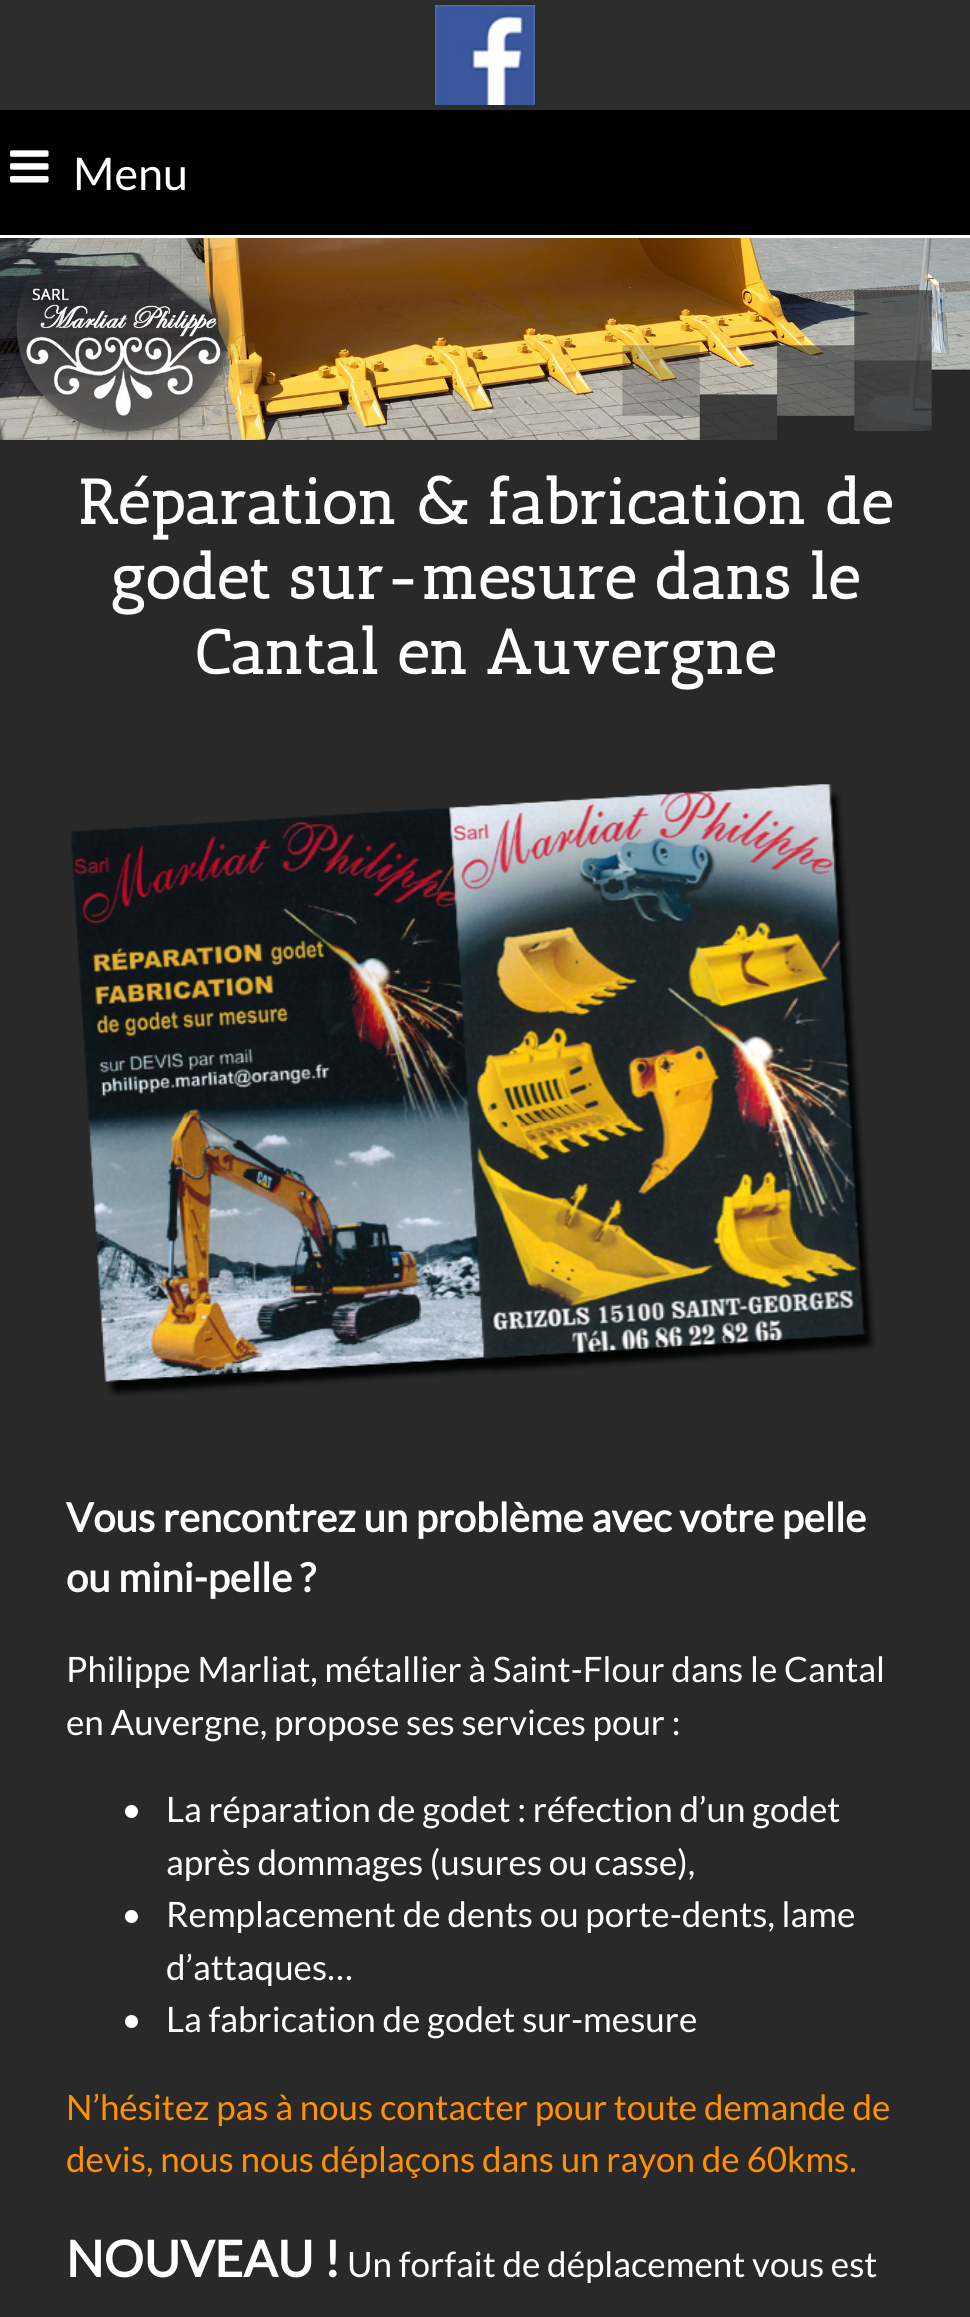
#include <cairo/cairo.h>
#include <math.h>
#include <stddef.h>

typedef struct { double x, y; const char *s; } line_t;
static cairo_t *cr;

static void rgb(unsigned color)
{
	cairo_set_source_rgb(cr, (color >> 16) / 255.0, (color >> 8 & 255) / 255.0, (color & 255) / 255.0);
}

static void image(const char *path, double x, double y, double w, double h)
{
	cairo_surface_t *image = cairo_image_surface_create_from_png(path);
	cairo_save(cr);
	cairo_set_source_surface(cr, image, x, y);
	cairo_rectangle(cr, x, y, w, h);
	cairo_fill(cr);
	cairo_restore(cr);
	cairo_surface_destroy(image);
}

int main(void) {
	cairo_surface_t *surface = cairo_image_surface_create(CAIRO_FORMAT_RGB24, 970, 2317);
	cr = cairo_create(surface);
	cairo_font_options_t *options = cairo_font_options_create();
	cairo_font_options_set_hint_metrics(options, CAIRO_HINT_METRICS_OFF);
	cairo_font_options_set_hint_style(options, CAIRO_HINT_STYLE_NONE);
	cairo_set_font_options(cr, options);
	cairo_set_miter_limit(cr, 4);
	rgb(0xffffff);
	cairo_paint(cr);
	rgb(0x2c2c2c);
	cairo_rectangle(cr, 0, 0, 970, 110);
	cairo_fill(cr);
	image("img/1.png", 435, 5, 100, 100);
	rgb(0x000000);
	cairo_rectangle(cr, 0, 110, 970, 125);
	cairo_fill(cr);
	image("img/2.png", 10, 150, 39, 33);
	image("img/3.png", 0, 238, 970, 202);
	rgb(0x29292a);
	cairo_rectangle(cr, 0, 440, 970, 1877);
	cairo_fill(cr);
	image("img/4.png", 70, 783, 805, 613);
	rgb(0xffffff);
	cairo_arc(cr, 131.5, 1811.5, 6.5, 0, 2 * M_PI);
	cairo_fill(cr);
	cairo_arc(cr, 131.5, 1916.5, 6.5, 0, 2 * M_PI);
	cairo_fill(cr);
	cairo_arc(cr, 131.5, 2021.5, 6.5, 0, 2 * M_PI);
	cairo_fill(cr);
	cairo_select_font_face(cr, "Lato", CAIRO_FONT_SLANT_NORMAL, CAIRO_FONT_WEIGHT_NORMAL);
	cairo_set_font_size(cr, 45);
	cairo_move_to(cr, 73, 190);
	cairo_show_text(cr, "Menu");
	cairo_select_font_face(cr, "Antic Slab", CAIRO_FONT_SLANT_NORMAL, CAIRO_FONT_WEIGHT_BOLD);
	cairo_set_font_size(cr, 62.5);
	{
		static const line_t items[] = {
			{78, 524, "Réparation & fabrication de"},
			{110, 599, "godet sur-mesure dans le"},
			{195, 674, "Cantal en Auvergne"},
		};
		for (size_t i = 0; i < sizeof items / sizeof *items; i++) {
			cairo_move_to(cr, items[i].x, items[i].y);
			cairo_show_text(cr, items[i].s);
		}
	}
	cairo_select_font_face(cr, "Lato", CAIRO_FONT_SLANT_NORMAL, CAIRO_FONT_WEIGHT_BOLD);
	cairo_set_font_size(cr, 40);
	cairo_move_to(cr, 66, 1532);
	cairo_show_text(cr, "Vous rencontrez un problème avec votre pelle");
	cairo_move_to(cr, 66, 1592);
	cairo_show_text(cr, "ou mini-pelle ?");
	cairo_select_font_face(cr, "Lato", CAIRO_FONT_SLANT_NORMAL, CAIRO_FONT_WEIGHT_NORMAL);
	cairo_set_font_size(cr, 35);
	{
		static const line_t items[] = {
			{66, 1682, "Philippe Marliat, métallier à Saint-Flour dans le Cantal"},
			{66, 1735, "en Auvergne, propose ses services pour :"},
			{166, 1822, "La réparation de godet : réfection d’un godet"},
			{166, 1875, "après dommages (usures ou casse),"},
			{166, 1927, "Remplacement de dents ou porte-dents, lame"},
			{166, 1980, "d’attaques…"},
			{166, 2032, "La fabrication de godet sur-mesure"},
		};
		for (size_t i = 0; i < sizeof items / sizeof *items; i++) {
			cairo_move_to(cr, items[i].x, items[i].y);
			cairo_show_text(cr, items[i].s);
		}
	}
	rgb(0xff9000);
	cairo_move_to(cr, 66, 2120);
	cairo_show_text(cr, "N’hésitez pas à nous contacter pour toute demande de");
	cairo_move_to(cr, 66, 2172);
	cairo_show_text(cr, "devis, nous nous déplaçons dans un rayon de 60kms.");
	cairo_select_font_face(cr, "Lato", CAIRO_FONT_SLANT_NORMAL, CAIRO_FONT_WEIGHT_BOLD);
	cairo_set_font_size(cr, 50);
	rgb(0xffffff);
	cairo_move_to(cr, 66, 2277);
	cairo_show_text(cr, "NOUVEAU !");
	cairo_select_font_face(cr, "Lato", CAIRO_FONT_SLANT_NORMAL, CAIRO_FONT_WEIGHT_NORMAL);
	cairo_set_font_size(cr, 35);
	cairo_move_to(cr, 347, 2277);
	cairo_show_text(cr, "Un forfait de déplacement vous est");
	cairo_surface_write_to_png(surface, "page.png");
	cairo_font_options_destroy(options);
	cairo_destroy(cr);
	cairo_surface_destroy(surface);
	return 0;
}
